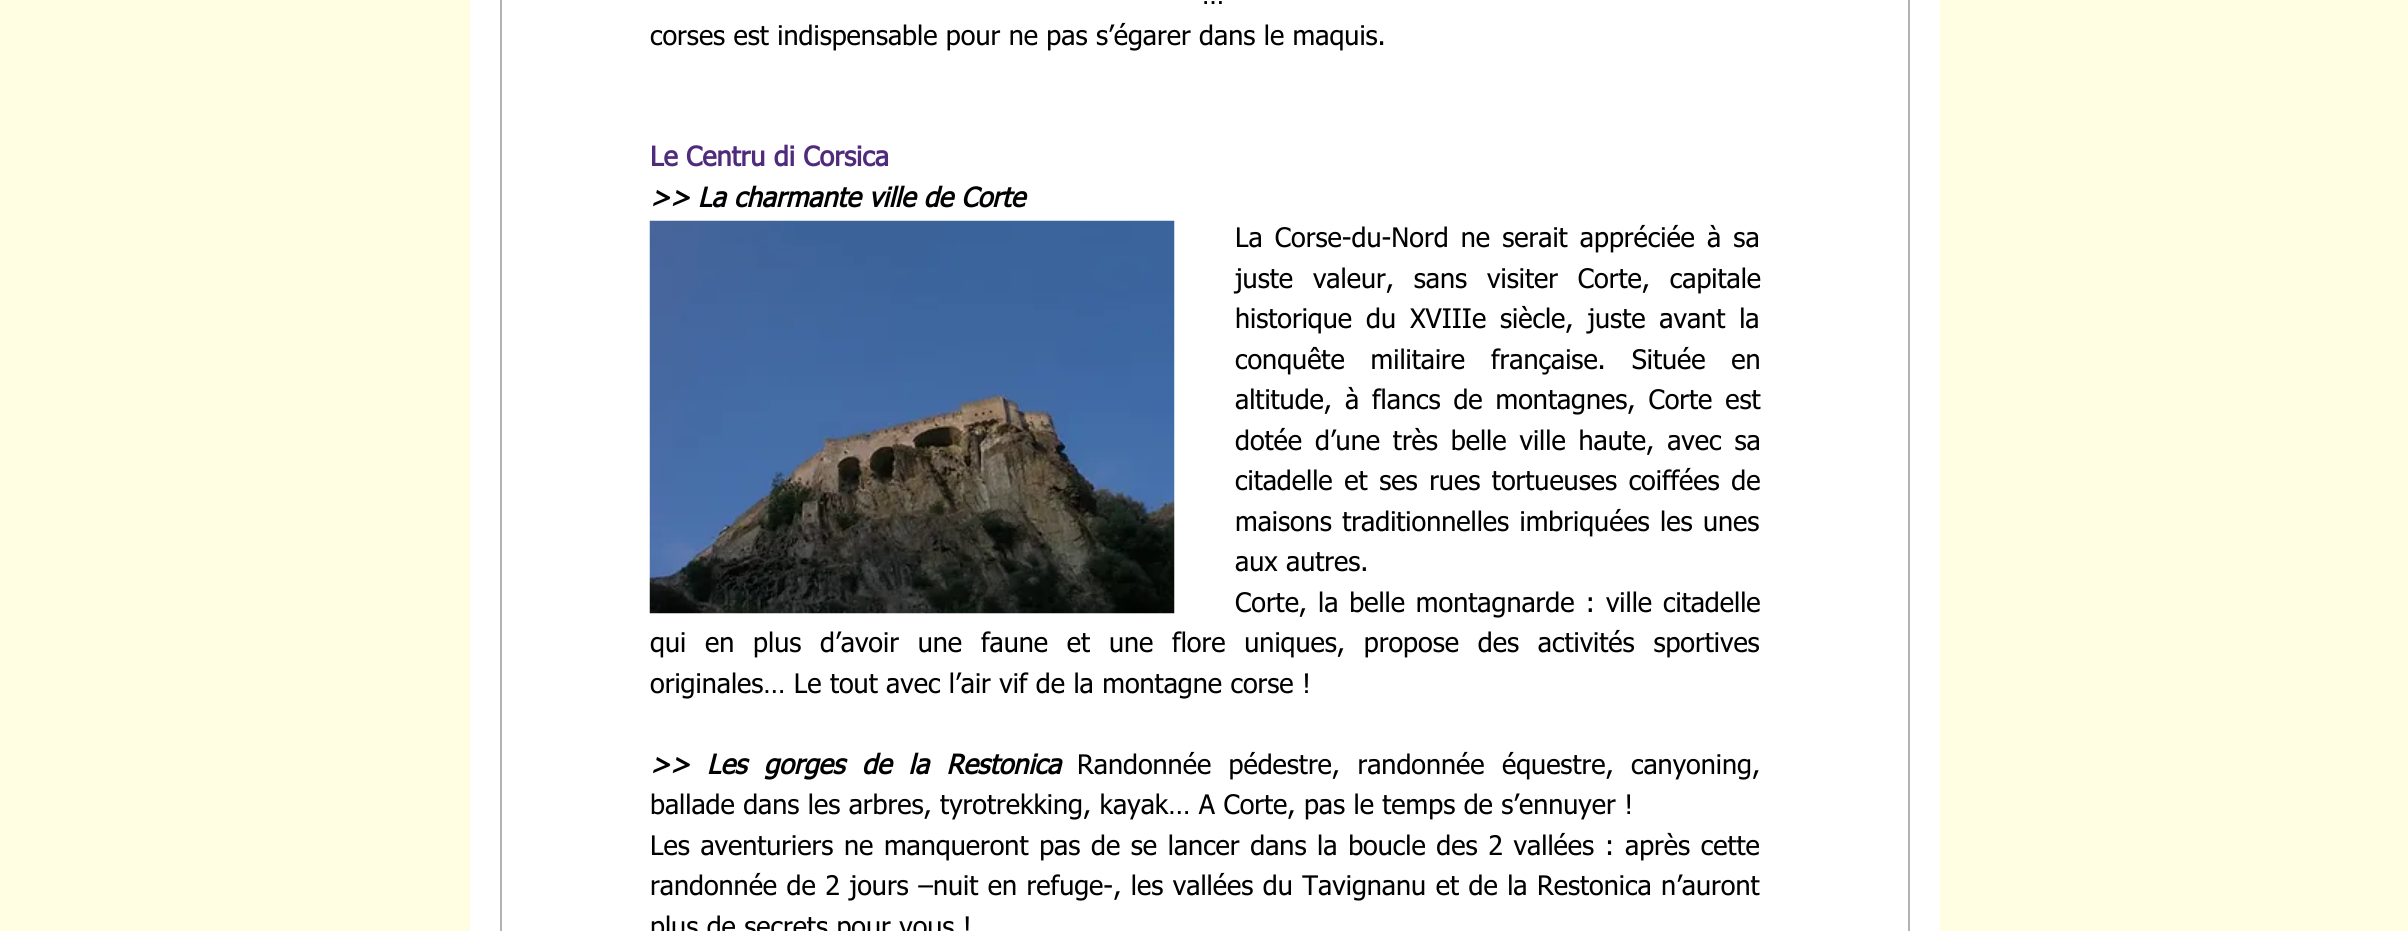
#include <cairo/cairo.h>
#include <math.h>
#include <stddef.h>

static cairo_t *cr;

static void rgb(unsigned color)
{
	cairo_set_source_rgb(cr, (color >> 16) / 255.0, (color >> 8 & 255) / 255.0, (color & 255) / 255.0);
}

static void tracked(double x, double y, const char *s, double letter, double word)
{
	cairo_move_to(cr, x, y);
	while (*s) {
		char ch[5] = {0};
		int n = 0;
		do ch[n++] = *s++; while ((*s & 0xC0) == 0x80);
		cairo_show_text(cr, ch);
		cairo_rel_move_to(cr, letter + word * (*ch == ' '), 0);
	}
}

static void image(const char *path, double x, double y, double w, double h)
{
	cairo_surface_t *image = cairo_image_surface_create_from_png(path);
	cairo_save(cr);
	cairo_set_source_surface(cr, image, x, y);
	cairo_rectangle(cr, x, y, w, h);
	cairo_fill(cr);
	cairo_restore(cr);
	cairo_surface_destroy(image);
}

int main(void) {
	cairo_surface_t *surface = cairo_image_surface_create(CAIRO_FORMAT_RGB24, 2408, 931);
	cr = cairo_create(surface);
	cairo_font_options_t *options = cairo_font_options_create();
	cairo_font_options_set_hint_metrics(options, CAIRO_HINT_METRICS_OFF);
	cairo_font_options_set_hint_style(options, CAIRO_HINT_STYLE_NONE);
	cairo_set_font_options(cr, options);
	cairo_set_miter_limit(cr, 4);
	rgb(0xfffde2);
	cairo_paint(cr);
	rgb(0xffffff);
	cairo_rectangle(cr, 470, 0, 1470, 931);
	cairo_fill(cr);
	cairo_rectangle(cr, 501, -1, 1408, 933);
	rgb(0xb3b3b3);
	cairo_stroke(cr);
	image("img/1.png", 649, 220, 526, 394);
	cairo_select_font_face(cr, "tahoma", CAIRO_FONT_SLANT_NORMAL, CAIRO_FONT_WEIGHT_NORMAL);
	cairo_set_font_size(cr, 27);
	rgb(0x000000);
	tracked(1202, 4, "…", 0, 3);
	cairo_move_to(cr, 650, 45);
	cairo_show_text(cr, "corses est indispensable pour ne pas s’égarer dans le maquis.");
	cairo_select_font_face(cr, "tahoma", CAIRO_FONT_SLANT_NORMAL, CAIRO_FONT_WEIGHT_BOLD);
	rgb(0x502b7b);
	cairo_move_to(cr, 650, 166);
	cairo_show_text(cr, "Le Centru di Corsica");
	cairo_select_font_face(cr, "tahoma", CAIRO_FONT_SLANT_ITALIC, CAIRO_FONT_WEIGHT_BOLD);
	rgb(0x000000);
	cairo_move_to(cr, 650, 207);
	cairo_show_text(cr, ">> La charmante ville de Corte");
	cairo_select_font_face(cr, "tahoma", CAIRO_FONT_SLANT_NORMAL, CAIRO_FONT_WEIGHT_NORMAL);
	tracked(1235, 247, "La Corse-du-Nord ne serait appréciée à sa", 0, 3.75);
	tracked(1235, 288, "juste valeur, sans visiter Corte, capitale", 0, 11.5);
	tracked(1235, 328, "historique du XVIIIe siècle, juste avant la", 0, 5.5);
	tracked(1235, 369, "conquête militaire française. Située en", 0, 17.5);
	tracked(1235, 409, "altitude, à flancs de montagnes, Corte est", 0, 4.5);
	tracked(1235, 450, "dotée d’une très belle ville haute, avec sa", 0, 4.5);
	tracked(1235, 490, "citadelle et ses rues tortueuses coiffées de", 0, 3.25);
	tracked(1235, 531, "maisons traditionnelles imbriquées les unes", 0, 2);
	cairo_move_to(cr, 1235, 571);
	cairo_show_text(cr, "aux autres.");
	tracked(1235, 612, "Corte, la belle montagnarde : ville citadelle", 0, 2.5);
	tracked(650, 652, "qui en plus d’avoir une faune et une flore uniques, propose des activités sportives", 0, 10.4);
	cairo_move_to(cr, 650, 693);
	cairo_show_text(cr, "originales… Le tout avec l’air vif de la montagne corse !");
	cairo_select_font_face(cr, "tahoma", CAIRO_FONT_SLANT_ITALIC, CAIRO_FONT_WEIGHT_BOLD);
	tracked(650, 774, ">> Les gorges de la Restonica", 0, 9);
	cairo_select_font_face(cr, "tahoma", CAIRO_FONT_SLANT_NORMAL, CAIRO_FONT_WEIGHT_NORMAL);
	tracked(1077, 774, "Randonnée pédestre, randonnée équestre, canyoning,", 0, 9);
	cairo_move_to(cr, 650, 814);
	cairo_show_text(cr, "ballade dans les arbres, tyrotrekking, kayak… A Corte, pas le temps de s’ennuyer !");
	tracked(650, 855, "Les aventuriers ne manqueront pas de se lancer dans la boucle des 2 vallées : après cette", 0, 2.25);
	tracked(650, 895, "randonnée de 2 jours –nuit en refuge-, les vallées du Tavignanu et de la Restonica n’auront", 0, 1.1);
	cairo_move_to(cr, 650, 936);
	cairo_show_text(cr, "plus de secrets pour vous !");
	cairo_surface_write_to_png(surface, "page.png");
	cairo_font_options_destroy(options);
	cairo_destroy(cr);
	cairo_surface_destroy(surface);
	return 0;
}
